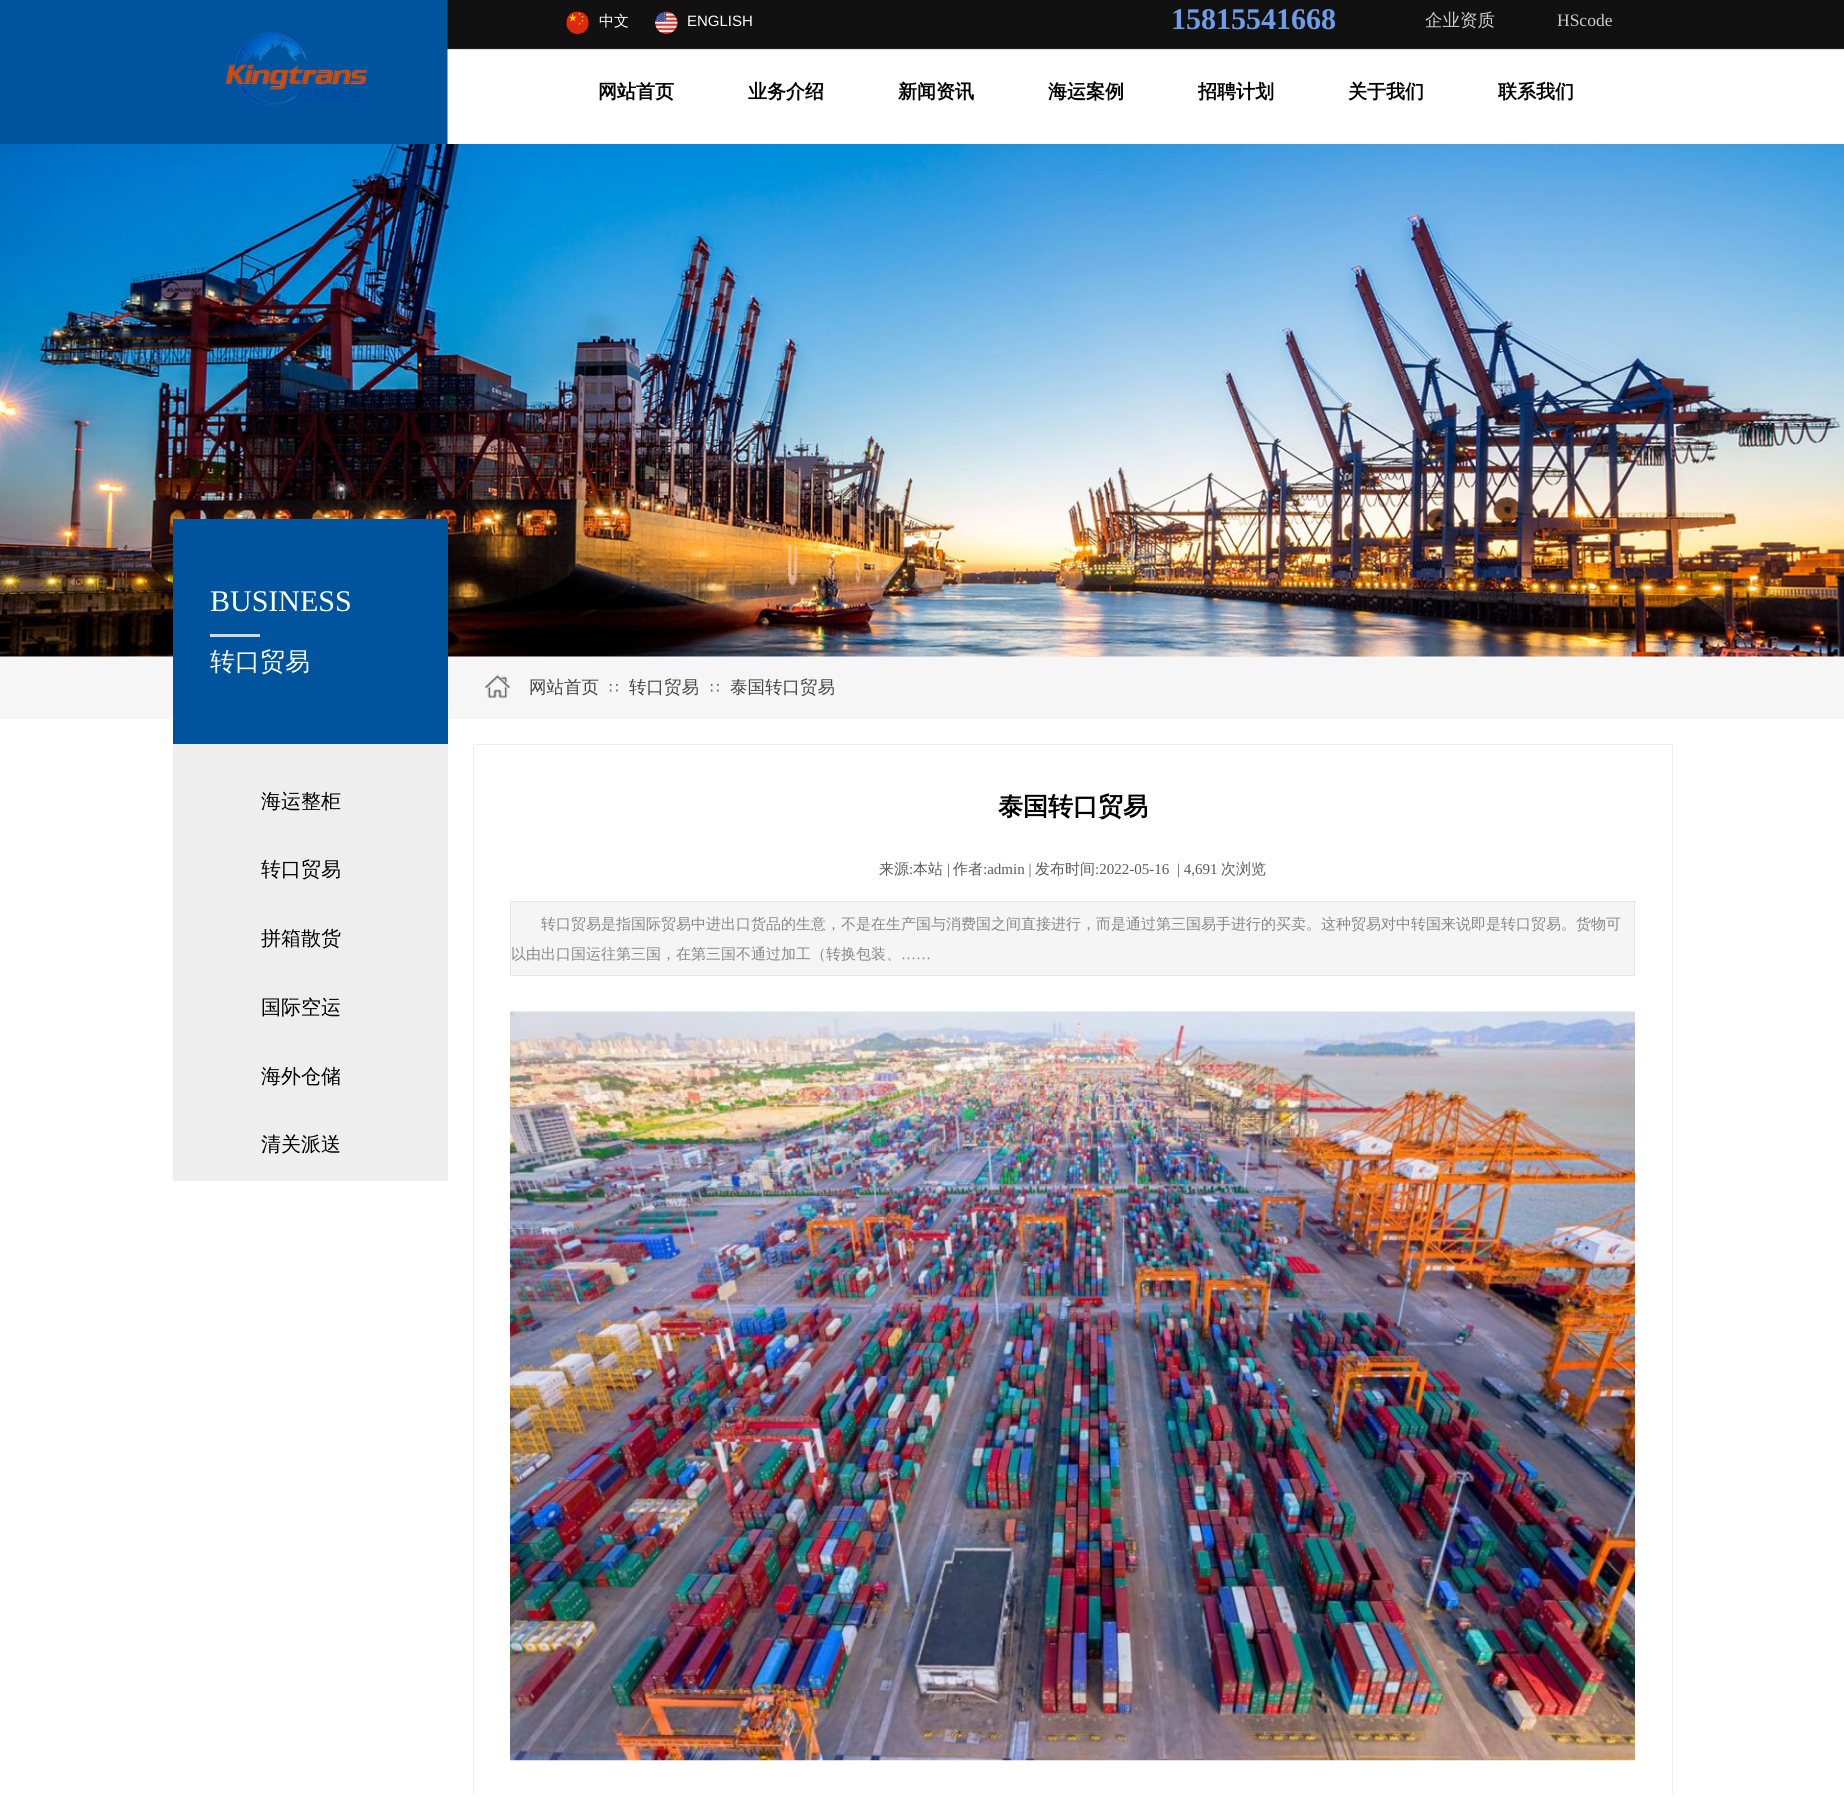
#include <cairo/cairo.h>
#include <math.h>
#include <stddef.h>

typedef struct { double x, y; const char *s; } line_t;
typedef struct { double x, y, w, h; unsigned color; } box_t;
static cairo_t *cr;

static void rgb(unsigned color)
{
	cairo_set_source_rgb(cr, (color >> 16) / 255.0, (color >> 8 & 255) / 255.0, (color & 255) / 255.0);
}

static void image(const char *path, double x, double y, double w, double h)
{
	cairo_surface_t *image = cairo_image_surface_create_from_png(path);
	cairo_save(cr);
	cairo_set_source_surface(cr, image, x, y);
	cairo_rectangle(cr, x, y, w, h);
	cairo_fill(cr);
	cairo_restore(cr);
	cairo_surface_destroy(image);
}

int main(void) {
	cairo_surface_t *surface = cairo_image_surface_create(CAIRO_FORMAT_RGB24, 1844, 1799);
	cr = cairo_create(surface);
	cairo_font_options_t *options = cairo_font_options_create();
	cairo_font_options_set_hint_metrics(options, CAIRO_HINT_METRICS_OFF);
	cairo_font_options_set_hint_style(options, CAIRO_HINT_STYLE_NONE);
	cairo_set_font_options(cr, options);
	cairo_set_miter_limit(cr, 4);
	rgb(0xffffff);
	cairo_paint(cr);
	image("img/1.png", 0, 0, 1844, 144);
	image("img/2.png", 566, 11, 23, 23);
	image("img/3.png", 655, 11, 23, 23);
	image("img/4.png", 225, 32, 142, 74);
	rgb(0xf6f6f6);
	cairo_rectangle(cr, 0, 656, 1844, 63);
	cairo_fill(cr);
	image("img/5.png", 0, 144, 1844, 513);
	{
		static const box_t items[] = {
			{173, 744, 275, 437, 0xeeeeee},
			{173, 519, 275, 225, 0x00549d},
			{210, 634, 50, 3, 0xd9d9d9},
		};
		for (size_t i = 0; i < sizeof items / sizeof *items; i++) {
			rgb(items[i].color);
			cairo_rectangle(cr, items[i].x, items[i].y, items[i].w, items[i].h);
			cairo_fill(cr);
		}
	}
	image("img/6.png", 485, 675, 25, 23);
	cairo_save(cr);
	cairo_rectangle(cr, 0, 0, 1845, 1794);
	cairo_clip(cr);
	cairo_rectangle(cr, 473.5, 744.5, 1199, 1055);
	rgb(0xeeeeee);
	cairo_set_line_width(cr, 1);
	cairo_stroke(cr);
	cairo_restore(cr);
	rgb(0xf5f5f5);
	cairo_rectangle(cr, 510.5, 901.5, 1124, 74);
	cairo_fill_preserve(cr);
	rgb(0xe5e5e5);
	cairo_set_line_width(cr, 1);
	cairo_stroke(cr);
	image("img/7.png", 510, 1011, 1125, 750);
	cairo_select_font_face(cr, "WenQuanYi Zen Hei Medium", CAIRO_FONT_SLANT_NORMAL, CAIRO_FONT_WEIGHT_NORMAL);
	cairo_set_font_size(cr, 15);
	rgb(0xffffff);
	cairo_move_to(cr, 599, 26);
	cairo_show_text(cr, "中文");
	cairo_select_font_face(cr, "Liberation Sans", CAIRO_FONT_SLANT_NORMAL, CAIRO_FONT_WEIGHT_NORMAL);
	cairo_move_to(cr, 687, 26);
	cairo_show_text(cr, "ENGLISH");
	cairo_select_font_face(cr, "Liberation Serif", CAIRO_FONT_SLANT_NORMAL, CAIRO_FONT_WEIGHT_BOLD);
	cairo_set_font_size(cr, 30);
	rgb(0x6d9eeb);
	cairo_move_to(cr, 1171, 29);
	cairo_show_text(cr, "15815541668");
	cairo_select_font_face(cr, "WenQuanYi Zen Hei Medium", CAIRO_FONT_SLANT_NORMAL, CAIRO_FONT_WEIGHT_NORMAL);
	cairo_set_font_size(cr, 17.5);
	rgb(0xcccccc);
	cairo_move_to(cr, 1425, 26);
	cairo_show_text(cr, "企业资质");
	cairo_select_font_face(cr, "Liberation Serif", CAIRO_FONT_SLANT_NORMAL, CAIRO_FONT_WEIGHT_NORMAL);
	cairo_move_to(cr, 1557, 26);
	cairo_show_text(cr, "HScode");
	cairo_select_font_face(cr, "WenQuanYi Zen Hei", CAIRO_FONT_SLANT_NORMAL, CAIRO_FONT_WEIGHT_BOLD);
	cairo_set_font_size(cr, 19);
	rgb(0x000000);
	{
		static const line_t items[] = {
			{598, 98, "网站首页"},
			{748, 98, "业务介绍"},
			{898, 98, "新闻资讯"},
			{1048, 98, "海运案例"},
			{1198, 98, "招聘计划"},
			{1348, 98, "关于我们"},
			{1498, 98, "联系我们"},
		};
		for (size_t i = 0; i < sizeof items / sizeof *items; i++) {
			cairo_move_to(cr, items[i].x, items[i].y);
			cairo_show_text(cr, items[i].s);
		}
	}
	cairo_select_font_face(cr, "Liberation Serif", CAIRO_FONT_SLANT_NORMAL, CAIRO_FONT_WEIGHT_NORMAL);
	cairo_set_font_size(cr, 30);
	rgb(0xffffff);
	cairo_move_to(cr, 210, 611);
	cairo_show_text(cr, "BUSINESS");
	cairo_select_font_face(cr, "WenQuanYi Zen Hei Medium", CAIRO_FONT_SLANT_NORMAL, CAIRO_FONT_WEIGHT_NORMAL);
	cairo_set_font_size(cr, 25);
	cairo_move_to(cr, 210, 670);
	cairo_show_text(cr, "转口贸易");
	cairo_set_font_size(cr, 20);
	rgb(0x000000);
	{
		static const line_t items[] = {
			{261, 808, "海运整柜"},
			{261, 876, "转口贸易"},
			{261, 945, "拼箱散货"},
			{261, 1014, "国际空运"},
			{261, 1083, "海外仓储"},
			{261, 1151, "清关派送"},
		};
		for (size_t i = 0; i < sizeof items / sizeof *items; i++) {
			cairo_move_to(cr, items[i].x, items[i].y);
			cairo_show_text(cr, items[i].s);
		}
	}
	cairo_set_font_size(cr, 17.5);
	rgb(0x434343);
	cairo_move_to(cr, 529, 693);
	cairo_show_text(cr, "网站首页");
	cairo_select_font_face(cr, "DejaVu Sans", CAIRO_FONT_SLANT_NORMAL, CAIRO_FONT_WEIGHT_NORMAL);
	cairo_set_font_size(cr, 15);
	rgb(0x5a5a5a);
	cairo_move_to(cr, 609, 693);
	cairo_show_text(cr, "∷");
	cairo_select_font_face(cr, "WenQuanYi Zen Hei Medium", CAIRO_FONT_SLANT_NORMAL, CAIRO_FONT_WEIGHT_NORMAL);
	cairo_set_font_size(cr, 17.5);
	rgb(0x434343);
	cairo_move_to(cr, 629, 693);
	cairo_show_text(cr, "转口贸易");
	cairo_select_font_face(cr, "DejaVu Sans", CAIRO_FONT_SLANT_NORMAL, CAIRO_FONT_WEIGHT_NORMAL);
	cairo_set_font_size(cr, 15);
	rgb(0x5a5a5a);
	cairo_move_to(cr, 710, 693);
	cairo_show_text(cr, "∷");
	cairo_select_font_face(cr, "WenQuanYi Zen Hei Medium", CAIRO_FONT_SLANT_NORMAL, CAIRO_FONT_WEIGHT_NORMAL);
	cairo_set_font_size(cr, 17.5);
	rgb(0x434343);
	cairo_move_to(cr, 730, 693);
	cairo_show_text(cr, "泰国转口贸易");
	cairo_select_font_face(cr, "WenQuanYi Zen Hei", CAIRO_FONT_SLANT_NORMAL, CAIRO_FONT_WEIGHT_BOLD);
	cairo_set_font_size(cr, 25);
	rgb(0x000000);
	cairo_move_to(cr, 998, 815);
	cairo_show_text(cr, "泰国转口贸易");
	cairo_select_font_face(cr, "WenQuanYi Zen Hei Medium", CAIRO_FONT_SLANT_NORMAL, CAIRO_FONT_WEIGHT_NORMAL);
	cairo_set_font_size(cr, 15);
	rgb(0x5a5a5a);
	cairo_move_to(cr, 879, 874);
	cairo_show_text(cr, "来源");
	cairo_select_font_face(cr, "Liberation Serif", CAIRO_FONT_SLANT_NORMAL, CAIRO_FONT_WEIGHT_NORMAL);
	cairo_move_to(cr, 909, 874);
	cairo_show_text(cr, ":");
	cairo_select_font_face(cr, "WenQuanYi Zen Hei Medium", CAIRO_FONT_SLANT_NORMAL, CAIRO_FONT_WEIGHT_NORMAL);
	cairo_move_to(cr, 913, 874);
	cairo_show_text(cr, "本站");
	cairo_select_font_face(cr, "Liberation Serif", CAIRO_FONT_SLANT_NORMAL, CAIRO_FONT_WEIGHT_NORMAL);
	cairo_move_to(cr, 947, 874);
	cairo_show_text(cr, "|");
	cairo_select_font_face(cr, "WenQuanYi Zen Hei Medium", CAIRO_FONT_SLANT_NORMAL, CAIRO_FONT_WEIGHT_NORMAL);
	cairo_move_to(cr, 953, 874);
	cairo_show_text(cr, "作者");
	cairo_select_font_face(cr, "Liberation Serif", CAIRO_FONT_SLANT_NORMAL, CAIRO_FONT_WEIGHT_NORMAL);
	cairo_move_to(cr, 983, 874);
	cairo_show_text(cr, ":admin |");
	cairo_select_font_face(cr, "WenQuanYi Zen Hei Medium", CAIRO_FONT_SLANT_NORMAL, CAIRO_FONT_WEIGHT_NORMAL);
	cairo_move_to(cr, 1035, 874);
	cairo_show_text(cr, "发布时间");
	cairo_select_font_face(cr, "Liberation Serif", CAIRO_FONT_SLANT_NORMAL, CAIRO_FONT_WEIGHT_NORMAL);
	cairo_move_to(cr, 1095, 874);
	cairo_show_text(cr, ":2022-05-16");
	cairo_move_to(cr, 1177, 874);
	cairo_show_text(cr, "| 4,691");
	cairo_select_font_face(cr, "WenQuanYi Zen Hei Medium", CAIRO_FONT_SLANT_NORMAL, CAIRO_FONT_WEIGHT_NORMAL);
	cairo_move_to(cr, 1221, 874);
	cairo_show_text(cr, "次浏览");
	rgb(0x868686);
	cairo_move_to(cr, 541, 929);
	cairo_show_text(cr, "转口贸易是指国际贸易中进出口货品的生意，不是在生产国与消费国之间直接进行，而是通过第三国易手进行的买卖。这种贸易对中转国来说即是转口贸易。货物可");
	cairo_move_to(cr, 511, 959);
	cairo_show_text(cr, "以由出口国运往第三国，在第三国不通过加工（转换包装、");
	cairo_select_font_face(cr, "Liberation Serif", CAIRO_FONT_SLANT_NORMAL, CAIRO_FONT_WEIGHT_NORMAL);
	cairo_move_to(cr, 901, 959);
	cairo_show_text(cr, "……");
	cairo_surface_write_to_png(surface, "page.png");
	cairo_font_options_destroy(options);
	cairo_destroy(cr);
	cairo_surface_destroy(surface);
	return 0;
}
